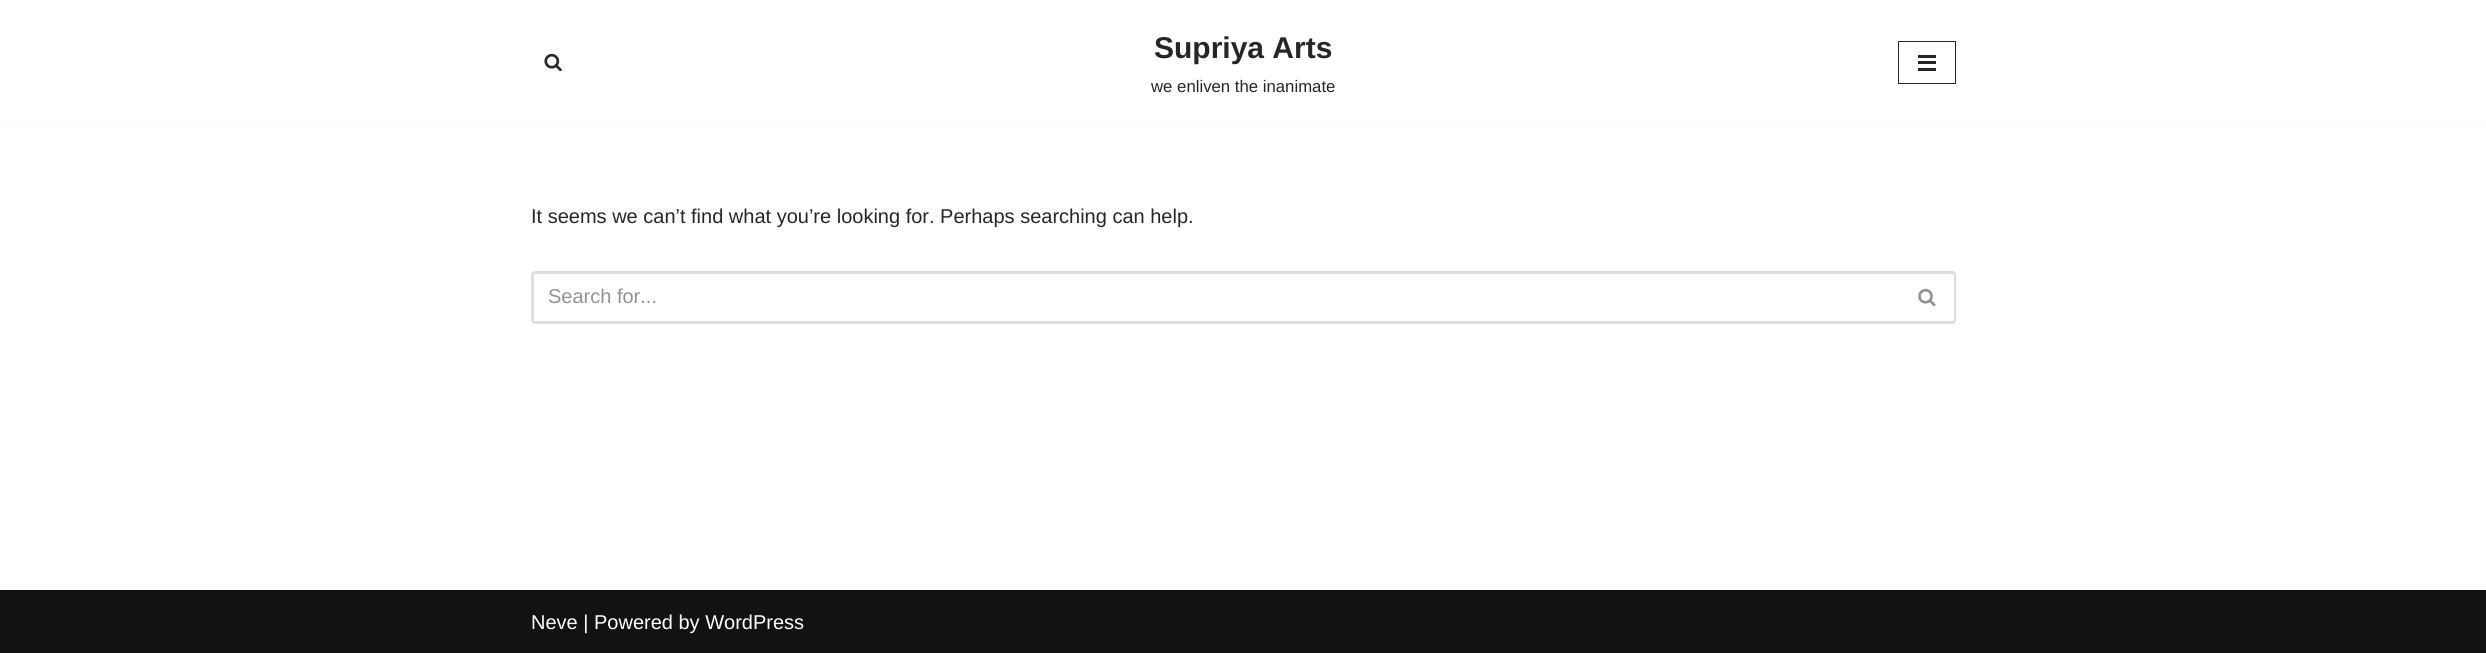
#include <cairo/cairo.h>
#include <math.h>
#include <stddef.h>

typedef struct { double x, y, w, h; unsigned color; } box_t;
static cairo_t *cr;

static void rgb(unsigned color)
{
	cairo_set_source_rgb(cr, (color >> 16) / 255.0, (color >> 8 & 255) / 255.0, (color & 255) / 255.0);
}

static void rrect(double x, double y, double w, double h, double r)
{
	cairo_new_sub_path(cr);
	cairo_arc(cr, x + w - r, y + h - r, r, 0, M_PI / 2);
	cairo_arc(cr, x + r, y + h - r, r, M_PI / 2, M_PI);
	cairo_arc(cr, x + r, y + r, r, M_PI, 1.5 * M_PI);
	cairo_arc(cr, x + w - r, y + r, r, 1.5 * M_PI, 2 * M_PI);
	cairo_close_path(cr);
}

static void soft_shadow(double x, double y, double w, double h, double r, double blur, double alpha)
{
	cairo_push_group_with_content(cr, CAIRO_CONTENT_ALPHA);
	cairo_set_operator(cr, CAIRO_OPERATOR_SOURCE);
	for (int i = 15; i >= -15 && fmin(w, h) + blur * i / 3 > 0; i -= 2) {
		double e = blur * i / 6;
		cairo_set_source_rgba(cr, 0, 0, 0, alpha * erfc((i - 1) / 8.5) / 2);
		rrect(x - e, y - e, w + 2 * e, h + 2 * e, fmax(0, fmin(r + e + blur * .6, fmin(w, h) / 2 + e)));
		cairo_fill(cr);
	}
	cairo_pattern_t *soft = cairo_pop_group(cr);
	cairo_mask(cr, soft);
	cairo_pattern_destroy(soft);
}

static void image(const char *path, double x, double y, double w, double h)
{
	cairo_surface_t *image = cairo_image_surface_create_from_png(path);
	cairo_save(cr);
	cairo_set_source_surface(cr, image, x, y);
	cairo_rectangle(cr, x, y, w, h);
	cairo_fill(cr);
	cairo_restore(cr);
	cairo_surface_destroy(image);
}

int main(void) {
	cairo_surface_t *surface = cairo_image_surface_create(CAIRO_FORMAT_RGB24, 2486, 653);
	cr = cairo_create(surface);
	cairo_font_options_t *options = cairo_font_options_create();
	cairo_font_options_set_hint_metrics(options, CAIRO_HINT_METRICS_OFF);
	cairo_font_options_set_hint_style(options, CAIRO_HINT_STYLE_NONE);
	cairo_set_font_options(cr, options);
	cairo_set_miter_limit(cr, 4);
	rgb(0xffffff);
	cairo_paint(cr);
	rgb(0x000000);
	soft_shadow(0, -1, 2486, 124, 0, 2, 0.1);
	rgb(0xffffff);
	cairo_rectangle(cr, 0, 0, 2486, 124);
	cairo_fill(cr);
	image("img/1.png", 544, 53, 18, 18);
	cairo_rectangle(cr, 1898.5, 41.5, 57, 42);
	rgb(0x272626);
	cairo_set_line_width(cr, 1);
	cairo_stroke(cr);
	{
		static const box_t items[] = {
			{1918, 55, 18, 3, 0x272626},
			{1918, 61, 18, 3, 0x272626},
			{1918, 68, 18, 3, 0x272626},
		};
		for (size_t i = 0; i < sizeof items / sizeof *items; i++) {
			rgb(items[i].color);
			cairo_rectangle(cr, items[i].x, items[i].y, items[i].w, items[i].h);
			cairo_fill(cr);
		}
	}
	rgb(0xdddddd);
	cairo_set_fill_rule(cr, CAIRO_FILL_RULE_EVEN_ODD);
	cairo_new_path(cr);
	cairo_move_to(cr, 535, 271);
	cairo_line_to(cr, 1900, 271);
	cairo_line_to(cr, 1900, 324);
	cairo_line_to(cr, 535, 324);
	cairo_curve_to(cr, 533, 324, 531, 322, 531, 320);
	cairo_line_to(cr, 531, 275);
	cairo_curve_to(cr, 531, 273, 533, 271, 535, 271);
	cairo_close_path(cr);
	cairo_move_to(cr, 535, 274);
	cairo_line_to(cr, 1900, 274);
	cairo_line_to(cr, 1900, 321);
	cairo_line_to(cr, 535, 321);
	cairo_curve_to(cr, 534, 321, 534, 321, 534, 320);
	cairo_line_to(cr, 534, 275);
	cairo_curve_to(cr, 534, 274, 534, 274, 535, 274);
	cairo_close_path(cr);
	cairo_fill(cr);
	cairo_new_path(cr);
	cairo_move_to(cr, 1900, 271);
	cairo_line_to(cr, 1952, 271);
	cairo_curve_to(cr, 1955, 271, 1956, 273, 1956, 275);
	cairo_line_to(cr, 1956, 320);
	cairo_curve_to(cr, 1956, 322, 1955, 324, 1952, 324);
	cairo_line_to(cr, 1900, 324);
	cairo_close_path(cr);
	cairo_move_to(cr, 1900, 274);
	cairo_line_to(cr, 1952, 274);
	cairo_curve_to(cr, 1953, 274, 1954, 274, 1954, 275);
	cairo_line_to(cr, 1954, 320);
	cairo_curve_to(cr, 1954, 321, 1953, 321, 1952, 321);
	cairo_line_to(cr, 1900, 321);
	cairo_close_path(cr);
	cairo_fill(cr);
	image("img/2.png", 1918, 288, 18, 18);
	rgb(0x121212);
	cairo_rectangle(cr, 0, 590, 2486, 63);
	cairo_fill(cr);
	cairo_select_font_face(cr, "Liberation Sans", CAIRO_FONT_SLANT_NORMAL, CAIRO_FONT_WEIGHT_BOLD);
	cairo_set_font_size(cr, 30);
	rgb(0x272626);
	cairo_move_to(cr, 1154, 58);
	cairo_show_text(cr, "Supriya Arts");
	cairo_select_font_face(cr, "Liberation Sans", CAIRO_FONT_SLANT_NORMAL, CAIRO_FONT_WEIGHT_NORMAL);
	cairo_set_font_size(cr, 16.75);
	cairo_move_to(cr, 1151, 92);
	cairo_show_text(cr, "we enliven the inanimate");
	cairo_set_font_size(cr, 20);
	cairo_move_to(cr, 531, 223);
	cairo_show_text(cr, "It seems we can’t find what you’re looking for. Perhaps searching can help.");
	rgb(0x939393);
	cairo_move_to(cr, 548, 303);
	cairo_show_text(cr, "Search for...");
	rgb(0xffffff);
	cairo_move_to(cr, 531, 629);
	cairo_show_text(cr, "Neve | Powered by WordPress");
	cairo_surface_write_to_png(surface, "page.png");
	cairo_font_options_destroy(options);
	cairo_destroy(cr);
	cairo_surface_destroy(surface);
	return 0;
}
